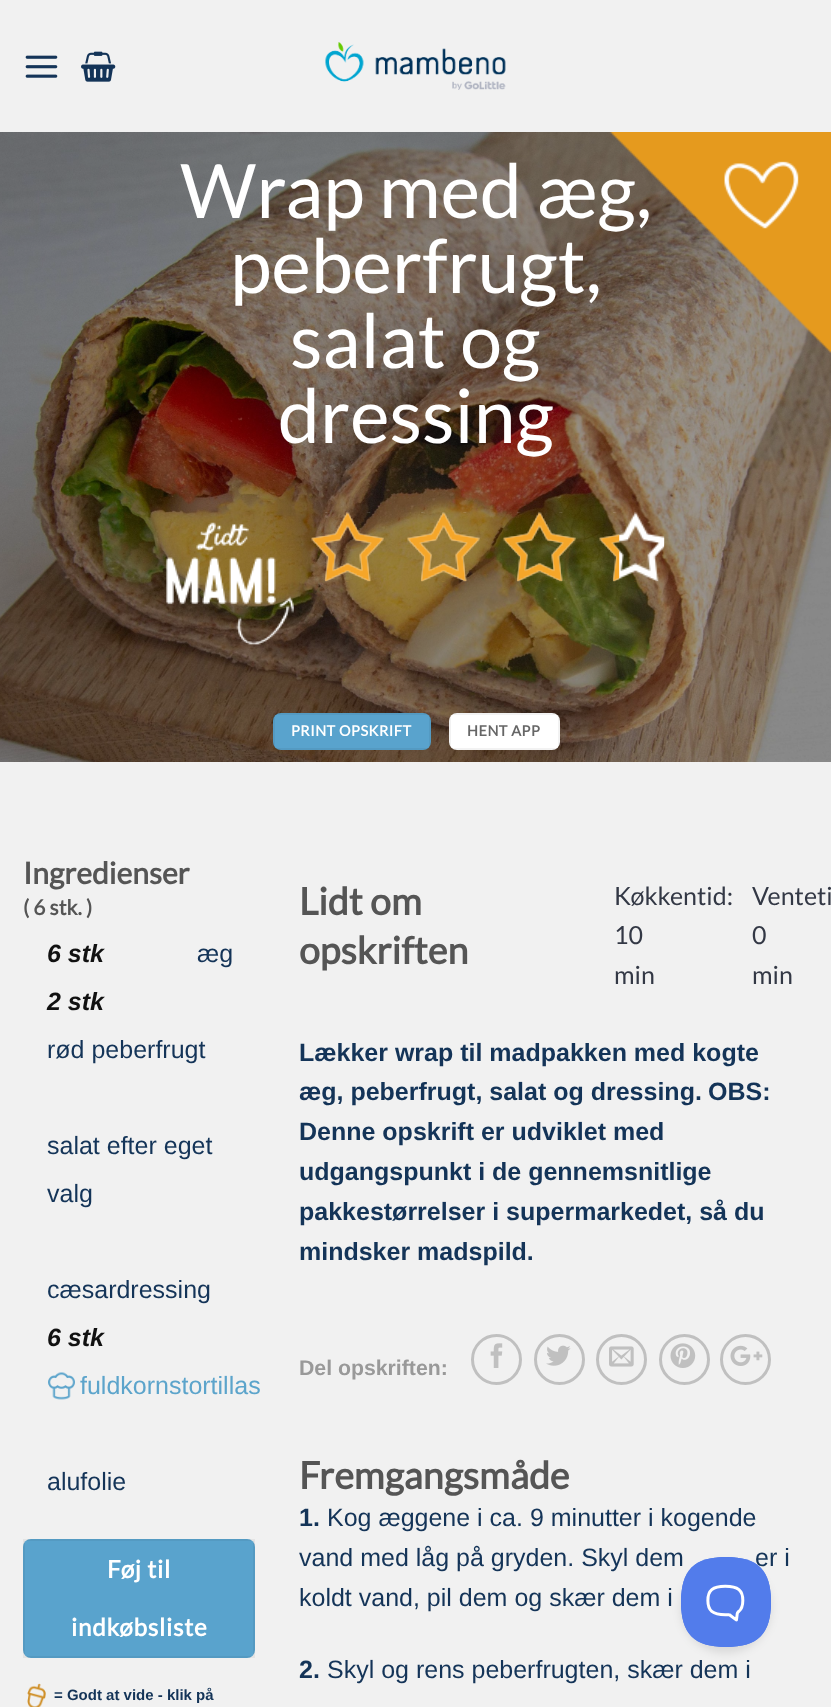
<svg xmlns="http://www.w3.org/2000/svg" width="831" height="1707">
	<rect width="100%" height="100%" fill="#F1F1F1" />
	<image x="25" y="55" width="33" height="23" href="assets/img1.png" />
	<image x="81" y="51" width="35" height="31" href="assets/img2.png" />
	<image x="325" y="42" width="181" height="48" href="assets/img3.png" />
	<image x="0" y="132" width="831" height="630" href="assets/img4.png" />
	<g font-family="Lato" font-size="75" fill="#FFFFFF">
		<text x="180" y="218">Wrap med æg,</text>
		<text x="230" y="293">peberfrugt,</text>
		<text x="290" y="368">salat og</text>
		<text x="278" y="443">dressing</text>
	</g>
	<image x="166" y="522" width="128" height="123" href="assets/img5.png" />
	<image x="311" y="512" width="354" height="70" href="assets/img6.png" />
	<image x="311" y="512" width="309" height="70" href="assets/img7.png" />
	<rect x="273" y="713" width="158" height="37" rx="8" fill="#59A3CD" />
	<rect x="274" y="714" width="156" height="35" fill="none" stroke="#000000" stroke-opacity="0.05" stroke-width="2" />
	<text x="291" y="736" font-family="Lato" font-size="14.5" font-weight="700" letter-spacing="0.5" fill="#FFFFFF">PRINT OPSKRIFT</text>
	<rect x="449" y="713" width="111" height="37" rx="8" fill="#FFFFFF" />
	<rect x="450" y="714" width="109" height="35" fill="none" stroke="#000000" stroke-opacity="0.05" stroke-width="2" />
	<text x="467" y="736" font-family="Lato" font-size="14.5" font-weight="700" letter-spacing="0.5" fill="#666666">HENT APP</text>
	<image x="610" y="132" width="221" height="221" href="assets/img8.png" />
	<text x="23" y="884" font-family="Lato" font-size="30" font-weight="700" fill="#555555">Ingredienser</text>
	<text x="23" y="915" font-family="Lato" font-size="21" font-weight="700" fill="#555555">( 6 stk. )</text>
	<text x="47" y="962" font-family="Liberation Sans" font-size="25" font-weight="700" font-style="italic" fill="#111111">6 stk</text>
	<text x="197" y="962" font-family="Liberation Sans" font-size="25" fill="#143458">æg</text>
	<text x="47" y="1010" font-family="Liberation Sans" font-size="25" font-weight="700" font-style="italic" fill="#111111">2 stk</text>
	<g font-family="Liberation Sans" font-size="25" fill="#143458">
		<text x="47" y="1058">rød peberfrugt</text>
		<text x="47" y="1154">salat efter eget</text>
		<text x="47" y="1202">valg</text>
		<text x="47" y="1298">cæsardressing</text>
	</g>
	<text x="47" y="1346" font-family="Liberation Sans" font-size="25" font-weight="700" font-style="italic" fill="#111111">6 stk</text>
	<image x="48" y="1372" width="27" height="28" href="assets/img9.png" />
	<text x="80" y="1394" font-family="Liberation Sans" font-size="25" fill="#5CA4CB">fuldkornstortillas</text>
	<text x="47" y="1490" font-family="Liberation Sans" font-size="25" fill="#143458">alufolie</text>
	<rect x="23" y="1539" width="232" height="119" rx="8" fill="#59A3CD" />
	<rect x="24" y="1540" width="230" height="117" fill="none" stroke="#000000" stroke-opacity="0.05" stroke-width="2" />
	<g font-family="Lato" font-size="24.25" font-weight="700" letter-spacing="0.75" fill="#FFFFFF">
		<text x="107" y="1578">Føj til</text>
		<text x="71" y="1636">indkøbsliste</text>
	</g>
	<image x="27" y="1683" width="19" height="24" href="assets/img10.png" />
	<text x="54" y="1700" font-family="Liberation Sans" font-size="15" font-weight="700" fill="#143458">= Godt at vide - klik på</text>
	<g font-family="Lato" font-size="37.5" font-weight="700" fill="#555555">
		<text x="299" y="915">Lidt om</text>
		<text x="299" y="964">opskriften</text>
	</g>
	<g font-family="Lato" font-size="25" fill="#333845">
		<text x="614" y="905">Køkkentid:</text>
		<text x="614" y="944">10</text>
		<text x="614" y="984">min</text>
		<text x="752" y="905">Venteti</text>
		<text x="752" y="944">0</text>
		<text x="752" y="984">min</text>
	</g>
	<g font-family="Liberation Sans" font-size="25" font-weight="700" fill="#143458">
		<text x="299" y="1061">Lækker wrap til madpakken med kogte</text>
		<text x="299" y="1100">æg, peberfrugt, salat og dressing.</text>
		<text x="708" y="1100">OBS:</text>
		<text x="299" y="1140">Denne opskrift er udviklet med</text>
		<text x="299" y="1180">udgangspunkt i de gennemsnitlige</text>
		<text x="299" y="1220">pakkestørrelser i supermarkedet, så du</text>
		<text x="299" y="1260">mindsker madspild.</text>
	</g>
	<text x="299" y="1375" font-family="Liberation Sans" font-size="21.25" font-weight="700" fill="#999999">Del opskriften:</text>
	<circle cx="496.5" cy="1359.5" r="24" fill="none" stroke="#C0C0C0" stroke-width="3" />
	<image x="490" y="1343" width="13" height="25" href="assets/img11.png" />
	<circle cx="559.5" cy="1359.5" r="24" fill="none" stroke="#C0C0C0" stroke-width="3" />
	<image x="546" y="1345" width="25" height="21" href="assets/img12.png" />
	<circle cx="621.5" cy="1359.5" r="24" fill="none" stroke="#C0C0C0" stroke-width="3" />
	<image x="609" y="1346" width="25" height="21" href="assets/img13.png" />
	<circle cx="684.5" cy="1359.5" r="24" fill="none" stroke="#C0C0C0" stroke-width="3" />
	<image x="670" y="1343" width="26" height="25" href="assets/img14.png" />
	<circle cx="745.5" cy="1359.5" r="24" fill="none" stroke="#C0C0C0" stroke-width="3" />
	<image x="730" y="1345" width="33" height="21" href="assets/img15.png" />
	<text x="299" y="1489" font-family="Lato" font-size="37.5" font-weight="700" fill="#555555">Fremgangsmåde</text>
	<text x="299" y="1526" font-family="Liberation Sans" font-size="25" font-weight="700" fill="#143458">1.</text>
	<g font-family="Liberation Sans" font-size="25" fill="#143458">
		<text x="327" y="1526">Kog æggene i ca. 9 minutter i kogende</text>
		<text x="299" y="1566">vand med låg på gryden. Skyl dem</text>
		<text x="755" y="1566">er i</text>
		<text x="299" y="1606">koldt vand, pil dem og skær dem i</text>
	</g>
	<text x="299" y="1678" font-family="Liberation Sans" font-size="25" font-weight="700" fill="#143458">2.</text>
	<text x="327" y="1678" font-family="Liberation Sans" font-size="25" fill="#143458">Skyl og rens peberfrugten, skær dem i</text>
	<rect x="681" y="1563" width="90" height="90" rx="45" fill="#000000" fill-opacity="0.1" filter="blur(5px)" />
	<image x="681" y="1557" width="90" height="90" href="assets/img16.png" />
</svg>
